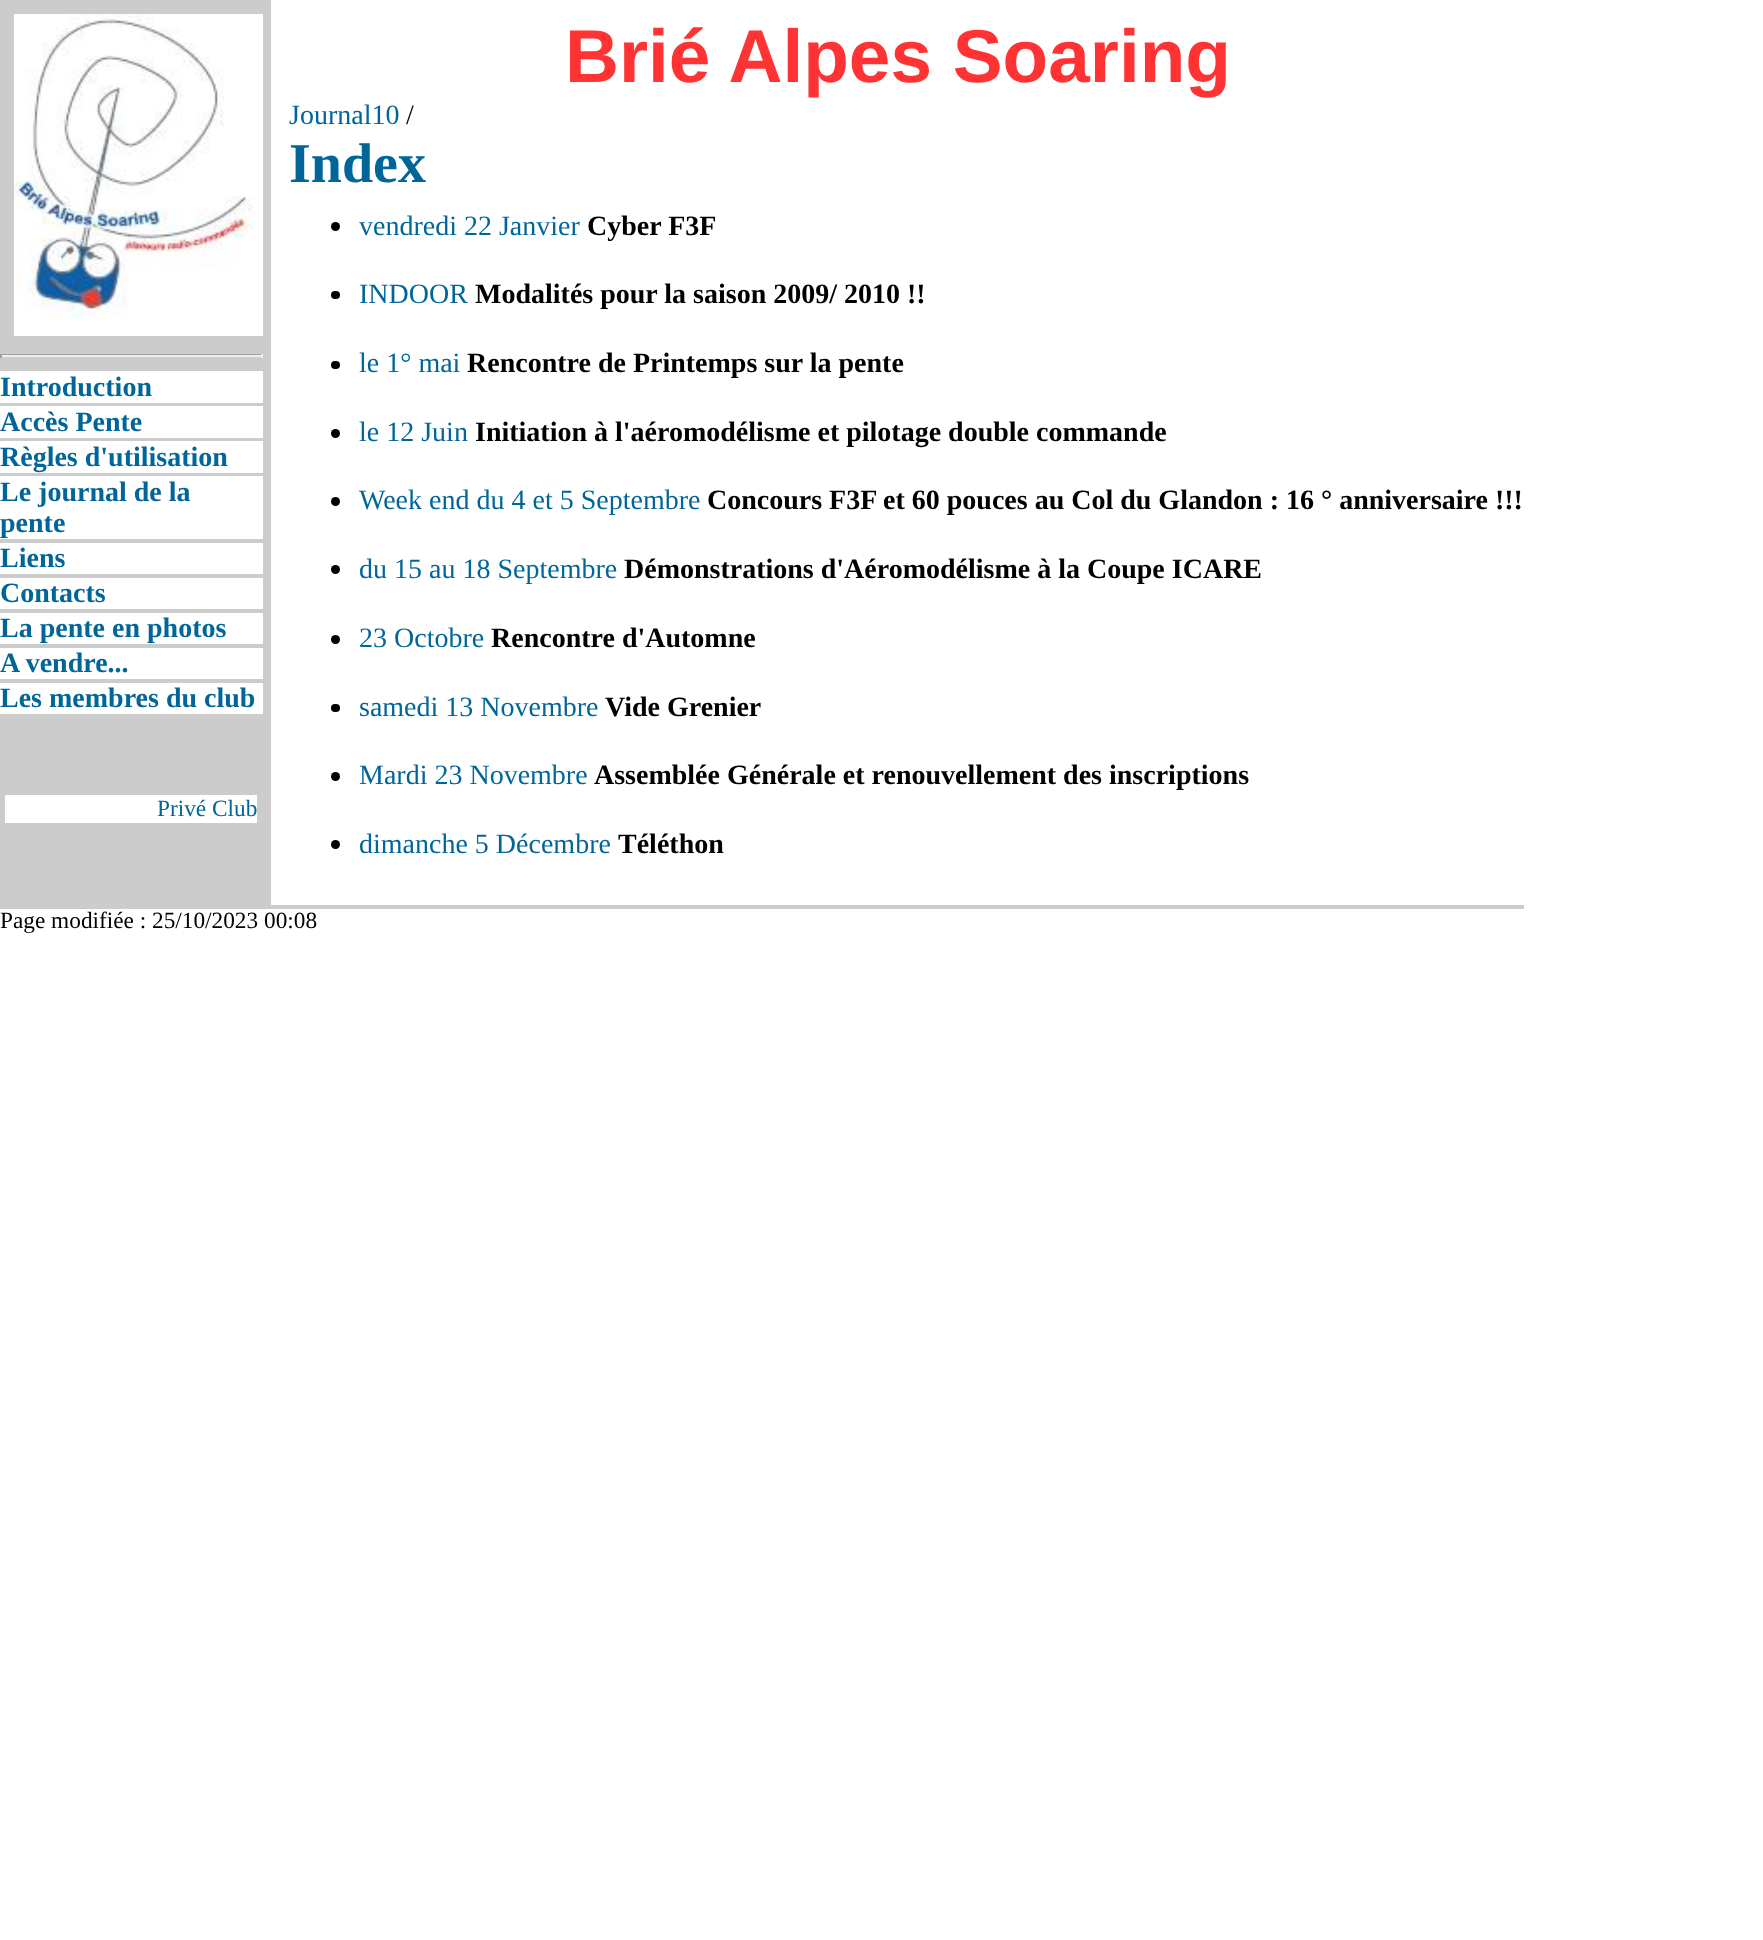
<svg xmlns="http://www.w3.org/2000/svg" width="1763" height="1940">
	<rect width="100%" height="100%" fill="#FFFFFF" />
	<rect x="0" y="0" width="271" height="905" fill="#CCCCCC" />
	<rect x="14" y="14" width="249" height="322" fill="#FFFFFF" />
	<image x="14" y="14" width="241" height="305" href="assets/img1.png" />
	<rect x="0" y="354" width="263" height="1" fill="#9F9F9F" />
	<rect x="261" y="354" width="2" height="4" fill="#EEEEEE" />
	<rect x="0" y="355" width="263" height="2" fill="#EEEEEE" />
	<rect x="0" y="354" width="2" height="4" fill="#9F9F9F" />
	<rect x="0" y="371" width="263" height="32" fill="#FFFFFF" />
	<text x="0" y="396" font-family="Liberation Serif" font-size="28" font-weight="700" fill="#006699">Introduction</text>
	<rect x="0" y="406" width="263" height="32" fill="#FFFFFF" />
	<text x="0" y="431" font-family="Liberation Serif" font-size="28" font-weight="700" fill="#006699">Accès Pente</text>
	<rect x="0" y="441" width="263" height="32" fill="#FFFFFF" />
	<text x="0" y="466" font-family="Liberation Serif" font-size="28" font-weight="700" fill="#006699">Règles d'utilisation</text>
	<rect x="0" y="476" width="263" height="63" fill="#FFFFFF" />
	<g font-family="Liberation Serif" font-size="28" font-weight="700" fill="#006699">
		<text x="0" y="501">Le journal de la</text>
		<text x="0" y="532">pente</text>
	</g>
	<rect x="0" y="543" width="263" height="31" fill="#FFFFFF" />
	<text x="0" y="567" font-family="Liberation Serif" font-size="28" font-weight="700" fill="#006699">Liens</text>
	<rect x="0" y="578" width="263" height="31" fill="#FFFFFF" />
	<text x="0" y="602" font-family="Liberation Serif" font-size="28" font-weight="700" fill="#006699">Contacts</text>
	<rect x="0" y="613" width="263" height="31" fill="#FFFFFF" />
	<text x="0" y="637" font-family="Liberation Serif" font-size="28" font-weight="700" fill="#006699">La pente en photos</text>
	<rect x="0" y="648" width="263" height="31" fill="#FFFFFF" />
	<text x="0" y="672" font-family="Liberation Serif" font-size="28" font-weight="700" fill="#006699">A vendre...</text>
	<rect x="0" y="683" width="263" height="31" fill="#FFFFFF" />
	<text x="0" y="707" font-family="Liberation Serif" font-size="28" font-weight="700" fill="#006699">Les membres du club</text>
	<rect x="5" y="795" width="252" height="28" fill="#FFFFFF" />
	<text x="157" y="816" font-family="Liberation Serif" font-size="23.3" fill="#006699">Privé Club</text>
	<text x="565" y="82" font-family="Liberation Sans" font-size="74.75" font-weight="700" fill="#FF3333">Brié Alpes Soaring</text>
	<text x="289" y="124" font-family="Liberation Serif" font-size="28" fill="#006699">Journal10</text>
	<text x="406" y="124" font-family="Liberation Serif" font-size="28" fill="#000000">/</text>
	<text x="289" y="182" font-family="Liberation Serif" font-size="56" font-weight="700" fill="#006699">Index</text>
	<circle cx="335.5" cy="226.5" r="4.5" fill="#000000" />
	<text x="359" y="235" font-family="Liberation Serif" font-size="28" fill="#006699">vendredi 22 Janvier</text>
	<text x="587" y="235" font-family="Liberation Serif" font-size="28" font-weight="700" fill="#000000">Cyber F3F</text>
	<rect x="331" y="291" width="9" height="8" rx="4" fill="#000000" />
	<text x="359" y="303" font-family="Liberation Serif" font-size="28" fill="#006699">INDOOR</text>
	<text x="475" y="303" font-family="Liberation Serif" font-size="28" font-weight="700" fill="#000000">Modalités pour la saison 2009/ 2010 !!</text>
	<rect x="331" y="361" width="9" height="8" rx="4" fill="#000000" />
	<text x="359" y="372" font-family="Liberation Serif" font-size="28" fill="#006699">le 1° mai</text>
	<text x="467" y="372" font-family="Liberation Serif" font-size="28" font-weight="700" fill="#000000">Rencontre de Printemps sur la pente</text>
	<circle cx="335.5" cy="433.5" r="4.5" fill="#000000" />
	<text x="359" y="441" font-family="Liberation Serif" font-size="28" fill="#006699">le 12 Juin</text>
	<text x="475" y="441" font-family="Liberation Serif" font-size="28" font-weight="700" fill="#000000">Initiation à l'aéromodélisme et pilotage double commande</text>
	<circle cx="335.5" cy="501.5" r="4.5" fill="#000000" />
	<text x="359" y="509" font-family="Liberation Serif" font-size="28" fill="#006699">Week end du 4 et 5 Septembre</text>
	<g font-family="Liberation Serif" font-size="28" font-weight="700" fill="#000000">
		<text x="707" y="509">Concours F3F</text>
		<text x="883" y="509">et 60 pouces au Col du Glandon : 16 ° anniversaire !!!</text>
	</g>
	<circle cx="335.5" cy="569.5" r="4.5" fill="#000000" />
	<text x="359" y="578" font-family="Liberation Serif" font-size="28" fill="#006699">du 15 au 18 Septembre</text>
	<text x="624" y="578" font-family="Liberation Serif" font-size="28" font-weight="700" fill="#000000">Démonstrations d'Aéromodélisme à la Coupe ICARE</text>
	<circle cx="335.5" cy="639.5" r="4.5" fill="#000000" />
	<text x="359" y="647" font-family="Liberation Serif" font-size="28" fill="#006699">23 Octobre</text>
	<text x="491" y="647" font-family="Liberation Serif" font-size="28" font-weight="700" fill="#000000">Rencontre d'Automne</text>
	<rect x="331" y="704" width="9" height="8" rx="4" fill="#000000" />
	<text x="359" y="716" font-family="Liberation Serif" font-size="28" fill="#006699">samedi 13 Novembre</text>
	<text x="605" y="716" font-family="Liberation Serif" font-size="28" font-weight="700" fill="#000000">Vide Grenier</text>
	<circle cx="335.5" cy="776.5" r="4.5" fill="#000000" />
	<text x="359" y="784" font-family="Liberation Serif" font-size="28" fill="#006699">Mardi 23 Novembre</text>
	<text x="594" y="784" font-family="Liberation Serif" font-size="28" font-weight="700" fill="#000000">Assemblée Générale et renouvellement des inscriptions</text>
	<circle cx="335.5" cy="844.5" r="4.5" fill="#000000" />
	<text x="359" y="853" font-family="Liberation Serif" font-size="28" fill="#006699">dimanche 5 Décembre</text>
	<text x="618" y="853" font-family="Liberation Serif" font-size="28" font-weight="700" fill="#000000">Téléthon</text>
	<rect x="0" y="905" width="1524" height="4" fill="#CCCCCC" />
	<text x="0" y="928" font-family="Liberation Serif" font-size="23.3" fill="#000000">Page modifiée : 25/10/2023 00:08</text>
</svg>
